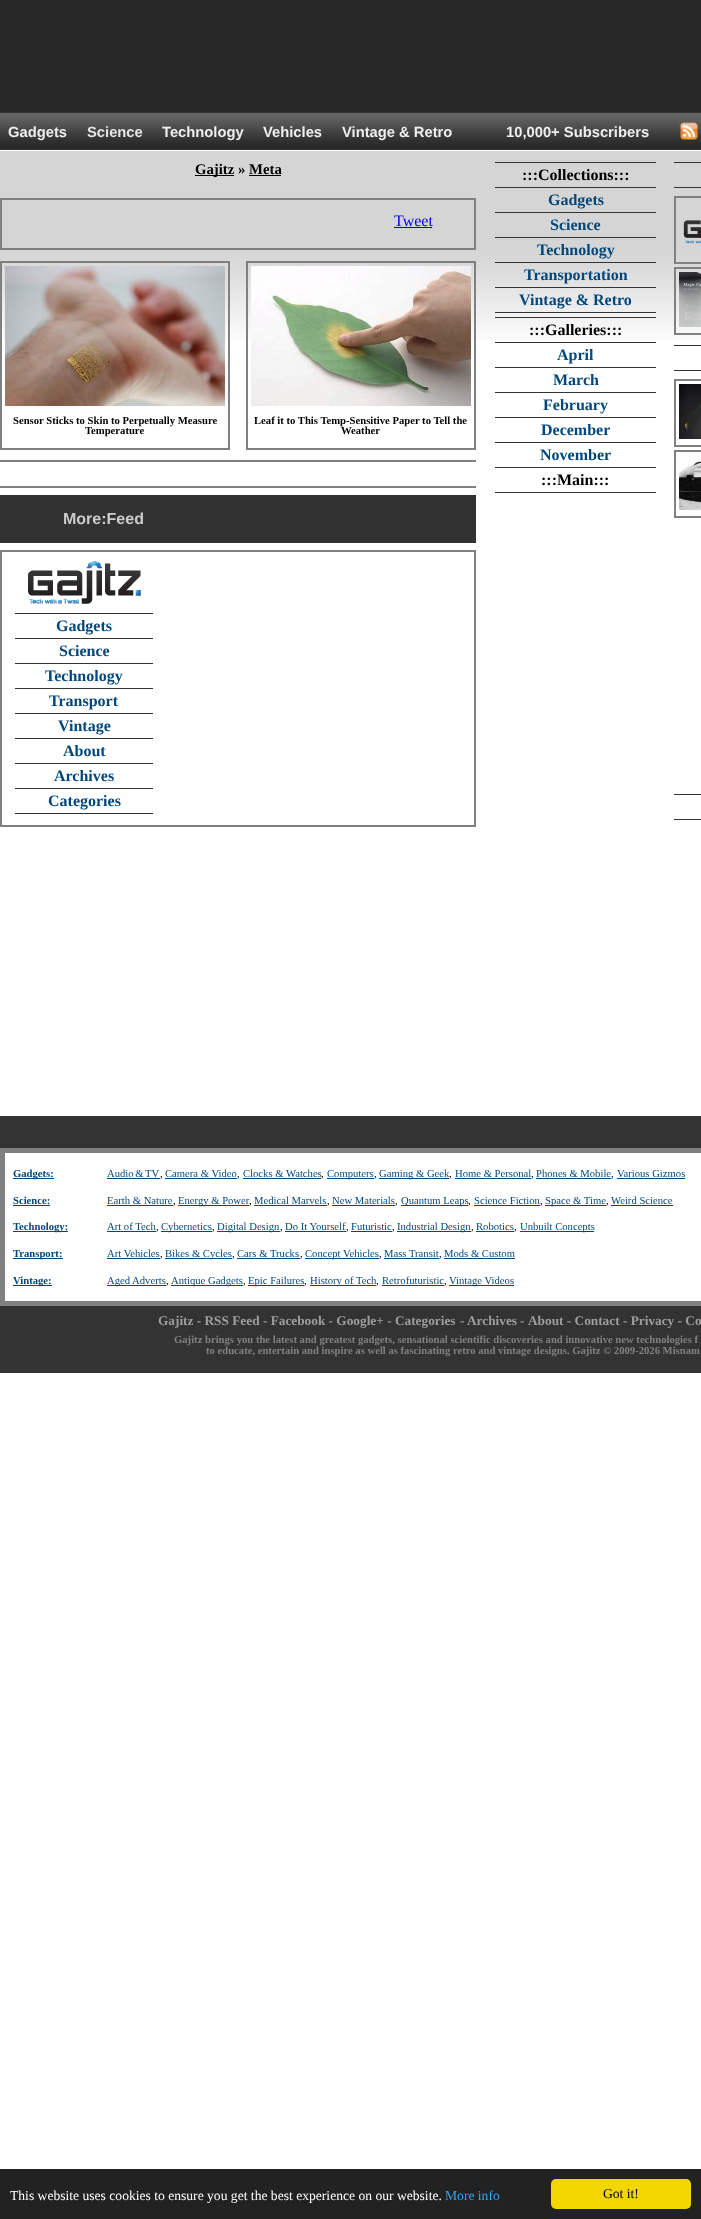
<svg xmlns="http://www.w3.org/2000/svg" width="701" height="2219">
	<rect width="100%" height="100%" fill="#FFFFFF" />
	<image x="0" y="0" width="701" height="340" href="assets/img1.png" />
	<text x="8" y="137" font-family="Liberation Sans" font-size="14.75" font-weight="700" fill="#EEEEEE">Gadgets</text>
	<text x="87" y="137" font-family="Liberation Sans" font-size="14.75" font-weight="700" fill="#E5E5E5">Science</text>
	<g font-family="Liberation Sans" font-size="14.75" font-weight="700" fill="#EEEEEE">
		<text x="162" y="137">Technology</text>
		<text x="263" y="137">Vehicles</text>
		<text x="342" y="137">Vintage &amp; Retro</text>
		<text x="506" y="137">10,000+ Subscribers</text>
	</g>
	<image x="678" y="120" width="22" height="22" href="assets/img2.png" />
	<rect x="195" y="175" width="39" height="1" fill="#000000" />
	<text x="195" y="174" font-family="Liberation Serif" font-size="14.75" font-weight="700" fill="#000000">Gajitz » Meta</text>
	<rect x="249" y="175" width="32" height="1" fill="#000000" />
	<rect x="1" y="199" width="474" height="50" fill="none" stroke="#808080" stroke-width="2" />
	<text x="394" y="226" font-family="Liberation Serif" font-size="16" fill="#0000EE">Tweet</text>
	<rect x="394" y="227" width="38" height="1" fill="#0000EE" />
	<rect x="1" y="262" width="228" height="187" fill="none" stroke="#808080" stroke-width="2" />
	<image x="5" y="266" width="220" height="140" href="assets/img3.png" />
	<g font-family="Liberation Serif" font-size="10.65" font-weight="700" fill="#000000">
		<text x="13" y="424">Sensor Sticks to Skin to Perpetually Measure</text>
		<text x="85" y="434">Temperature</text>
	</g>
	<rect x="247" y="262" width="228" height="187" fill="none" stroke="#808080" stroke-width="2" />
	<image x="251" y="266" width="220" height="140" href="assets/img4.png" />
	<g font-family="Liberation Serif" font-size="10.65" font-weight="700" fill="#000000">
		<text x="254" y="424">Leaf it to This Temp-Sensitive Paper to Tell the</text>
		<text x="341" y="434">Weather</text>
	</g>
	<rect x="0" y="460" width="476" height="2" fill="#808080" />
	<rect x="0" y="486" width="476" height="2" fill="#808080" />
	<rect x="0" y="495" width="476" height="48" fill="#323232" />
	<text x="63" y="524" font-family="Liberation Sans" font-size="16" font-weight="700" fill="#CCCCCC">More:Feed</text>
	<rect x="1" y="551" width="474" height="275" fill="none" stroke="#808080" stroke-width="2" />
	<image x="28" y="561" width="113" height="43" href="assets/img5.png" />
	<rect x="15" y="613" width="138" height="1" fill="#333333" />
	<rect x="15" y="638" width="138" height="1" fill="#333333" />
	<text x="56" y="631" font-family="Liberation Serif" font-size="16" font-weight="700" fill="#00477B">Gadgets</text>
	<rect x="15" y="663" width="138" height="1" fill="#333333" />
	<text x="59" y="656" font-family="Liberation Serif" font-size="16" font-weight="700" fill="#00477B">Science</text>
	<rect x="15" y="688" width="138" height="1" fill="#333333" />
	<text x="45" y="681" font-family="Liberation Serif" font-size="16" font-weight="700" fill="#00477B">Technology</text>
	<rect x="15" y="713" width="138" height="1" fill="#333333" />
	<text x="49" y="706" font-family="Liberation Serif" font-size="16" font-weight="700" fill="#00477B">Transport</text>
	<rect x="15" y="738" width="138" height="1" fill="#333333" />
	<text x="58" y="731" font-family="Liberation Serif" font-size="16" font-weight="700" fill="#00477B">Vintage</text>
	<rect x="15" y="763" width="138" height="1" fill="#333333" />
	<text x="63" y="756" font-family="Liberation Serif" font-size="16" font-weight="700" fill="#00477B">About</text>
	<rect x="15" y="788" width="138" height="1" fill="#333333" />
	<text x="54" y="781" font-family="Liberation Serif" font-size="16" font-weight="700" fill="#00477B">Archives</text>
	<rect x="15" y="813" width="138" height="1" fill="#333333" />
	<text x="48" y="806" font-family="Liberation Serif" font-size="16" font-weight="700" fill="#00477B">Categories</text>
	<rect x="495" y="162" width="161" height="1" fill="#333333" />
	<rect x="495" y="187" width="161" height="1" fill="#333333" />
	<text x="522" y="180" font-family="Liberation Serif" font-size="16" font-weight="700" fill="#000000">:::Collections:::</text>
	<rect x="495" y="212" width="161" height="1" fill="#333333" />
	<text x="548" y="205" font-family="Liberation Serif" font-size="16" font-weight="700" fill="#00477B">Gadgets</text>
	<rect x="495" y="237" width="161" height="1" fill="#333333" />
	<text x="550" y="230" font-family="Liberation Serif" font-size="16" font-weight="700" fill="#00477B">Science</text>
	<rect x="495" y="262" width="161" height="1" fill="#333333" />
	<text x="537" y="255" font-family="Liberation Serif" font-size="16" font-weight="700" fill="#00477B">Technology</text>
	<rect x="495" y="287" width="161" height="1" fill="#333333" />
	<text x="524" y="280" font-family="Liberation Serif" font-size="16" font-weight="700" fill="#00477B">Transportation</text>
	<rect x="495" y="312" width="161" height="1" fill="#333333" />
	<text x="519" y="305" font-family="Liberation Serif" font-size="16" font-weight="700" fill="#00477B">Vintage &amp; Retro</text>
	<rect x="495" y="317" width="161" height="1" fill="#333333" />
	<rect x="495" y="342" width="161" height="1" fill="#333333" />
	<text x="529" y="335" font-family="Liberation Serif" font-size="16" font-weight="700" fill="#000000">:::Galleries:::</text>
	<rect x="495" y="367" width="161" height="1" fill="#333333" />
	<text x="557" y="360" font-family="Liberation Serif" font-size="16" font-weight="700" fill="#00477B">April</text>
	<rect x="495" y="392" width="161" height="1" fill="#333333" />
	<text x="553" y="385" font-family="Liberation Serif" font-size="16" font-weight="700" fill="#00477B">March</text>
	<rect x="495" y="417" width="161" height="1" fill="#333333" />
	<text x="543" y="410" font-family="Liberation Serif" font-size="16" font-weight="700" fill="#00477B">February</text>
	<rect x="495" y="442" width="161" height="1" fill="#333333" />
	<text x="541" y="435" font-family="Liberation Serif" font-size="16" font-weight="700" fill="#00477B">December</text>
	<rect x="495" y="467" width="161" height="1" fill="#333333" />
	<text x="540" y="460" font-family="Liberation Serif" font-size="16" font-weight="700" fill="#00477B">November</text>
	<rect x="495" y="492" width="161" height="1" fill="#333333" />
	<text x="541" y="485" font-family="Liberation Serif" font-size="16" font-weight="700" fill="#000000">:::Main:::</text>
	<rect x="674" y="162" width="27" height="1" fill="#333333" />
	<rect x="674" y="187" width="27" height="1" fill="#333333" />
	<rect x="675" y="197" width="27" height="66" fill="none" stroke="#808080" stroke-width="2" />
	<image x="683" y="220" width="18" height="24" href="assets/img6.png" />
	<rect x="675" y="268" width="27" height="66" fill="none" stroke="#808080" stroke-width="2" />
	<image x="679" y="272" width="22" height="55" href="assets/img7.png" />
	<rect x="674" y="345" width="27" height="1" fill="#333333" />
	<rect x="674" y="370" width="27" height="1" fill="#333333" />
	<rect x="675" y="380" width="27" height="66" fill="none" stroke="#808080" stroke-width="2" />
	<image x="679" y="384" width="22" height="55" href="assets/img8.png" />
	<rect x="675" y="451" width="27" height="66" fill="none" stroke="#808080" stroke-width="2" />
	<image x="679" y="456" width="22" height="54" href="assets/img9.png" />
	<rect x="674" y="794" width="27" height="1" fill="#333333" />
	<rect x="674" y="819" width="27" height="1" fill="#333333" />
	<rect x="0" y="1116" width="701" height="257" fill="#333333" />
	<rect x="2.5" y="1150.5" width="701" height="153" fill="#FFFFFF" stroke="#808080" stroke-width="5" />
	<rect x="13" y="1178" width="41" height="1" fill="#00477B" />
	<g font-family="Liberation Serif" font-size="10.65" font-weight="700" fill="#00477B">
		<text x="13" y="1177">Gadgets:</text>
		<text x="13" y="1204">Science:</text>
	</g>
	<rect x="13" y="1205" width="37" height="1" fill="#00477B" />
	<rect x="13" y="1231" width="55" height="1" fill="#00477B" />
	<text x="13" y="1230" font-family="Liberation Serif" font-size="10.65" font-weight="700" fill="#00477B">Technology:</text>
	<rect x="13" y="1258" width="50" height="1" fill="#00477B" />
	<text x="13" y="1257" font-family="Liberation Serif" font-size="10.65" font-weight="700" fill="#00477B">Transport:</text>
	<rect x="13" y="1285" width="39" height="1" fill="#00477B" />
	<text x="13" y="1284" font-family="Liberation Serif" font-size="10.65" font-weight="700" fill="#00477B">Vintage:</text>
	<text x="107" y="1177" word-spacing="-1" font-family="Liberation Serif" font-size="10.65" fill="#00477B">Audio &amp; TV</text>
	<rect x="107" y="1178" width="53" height="1" fill="#00477B" />
	<text x="160" y="1177" font-family="Liberation Serif" font-size="10.65" fill="#000000">,</text>
	<text x="165" y="1177" font-family="Liberation Serif" font-size="10.65" fill="#00477B">Camera &amp; Video</text>
	<rect x="165" y="1178" width="72" height="1" fill="#00477B" />
	<text x="237" y="1177" font-family="Liberation Serif" font-size="10.65" fill="#000000">,</text>
	<text x="243" y="1177" font-family="Liberation Serif" font-size="10.65" fill="#00477B">Clocks &amp; Watches</text>
	<rect x="243" y="1178" width="78" height="1" fill="#00477B" />
	<text x="321" y="1177" font-family="Liberation Serif" font-size="10.65" fill="#000000">,</text>
	<rect x="327" y="1178" width="47" height="1" fill="#00477B" />
	<text x="327" y="1177" font-family="Liberation Serif" font-size="10.65" fill="#00477B">Computers</text>
	<text x="374" y="1177" font-family="Liberation Serif" font-size="10.65" fill="#000000">,</text>
	<rect x="379" y="1178" width="70" height="1" fill="#00477B" />
	<text x="379" y="1177" font-family="Liberation Serif" font-size="10.65" fill="#00477B">Gaming &amp; Geek</text>
	<text x="449" y="1177" font-family="Liberation Serif" font-size="10.65" fill="#000000">,</text>
	<text x="455" y="1177" font-family="Liberation Serif" font-size="10.65" fill="#00477B">Home &amp; Personal</text>
	<rect x="455" y="1178" width="76" height="1" fill="#00477B" />
	<text x="531" y="1177" font-family="Liberation Serif" font-size="10.65" fill="#000000">,</text>
	<text x="536" y="1177" font-family="Liberation Serif" font-size="10.65" fill="#00477B">Phones &amp; Mobile</text>
	<rect x="536" y="1178" width="75" height="1" fill="#00477B" />
	<text x="611" y="1177" font-family="Liberation Serif" font-size="10.65" fill="#000000">,</text>
	<text x="617" y="1177" font-family="Liberation Serif" font-size="10.65" fill="#00477B">Various Gizmos</text>
	<rect x="617" y="1178" width="68" height="1" fill="#00477B" />
	<text x="107" y="1204" font-family="Liberation Serif" font-size="10.65" fill="#00477B">Earth &amp; Nature</text>
	<rect x="107" y="1205" width="66" height="1" fill="#00477B" />
	<text x="173" y="1204" font-family="Liberation Serif" font-size="10.65" fill="#000000">,</text>
	<rect x="178" y="1205" width="71" height="1" fill="#00477B" />
	<text x="178" y="1204" font-family="Liberation Serif" font-size="10.65" fill="#00477B">Energy &amp; Power</text>
	<text x="249" y="1204" font-family="Liberation Serif" font-size="10.65" fill="#000000">,</text>
	<text x="254" y="1204" font-family="Liberation Serif" font-size="10.65" fill="#00477B">Medical Marvels</text>
	<rect x="254" y="1205" width="73" height="1" fill="#00477B" />
	<text x="327" y="1204" font-family="Liberation Serif" font-size="10.65" fill="#000000">,</text>
	<text x="332" y="1204" font-family="Liberation Serif" font-size="10.65" fill="#00477B">New Materials</text>
	<rect x="332" y="1205" width="63" height="1" fill="#00477B" />
	<text x="395" y="1204" font-family="Liberation Serif" font-size="10.65" fill="#000000">,</text>
	<rect x="401" y="1205" width="67" height="1" fill="#00477B" />
	<text x="401" y="1204" font-family="Liberation Serif" font-size="10.65" fill="#00477B">Quantum Leaps</text>
	<text x="468" y="1204" font-family="Liberation Serif" font-size="10.65" fill="#000000">,</text>
	<text x="474" y="1204" font-family="Liberation Serif" font-size="10.65" fill="#00477B">Science Fiction</text>
	<rect x="474" y="1205" width="66" height="1" fill="#00477B" />
	<text x="540" y="1204" font-family="Liberation Serif" font-size="10.65" fill="#000000">,</text>
	<rect x="545" y="1205" width="61" height="1" fill="#00477B" />
	<text x="545" y="1204" font-family="Liberation Serif" font-size="10.65" fill="#00477B">Space &amp; Time</text>
	<text x="606" y="1204" font-family="Liberation Serif" font-size="10.65" fill="#000000">,</text>
	<text x="611" y="1204" font-family="Liberation Serif" font-size="10.65" fill="#00477B">Weird Science</text>
	<rect x="611" y="1205" width="62" height="1" fill="#00477B" />
	<text x="107" y="1230" font-family="Liberation Serif" font-size="10.65" fill="#00477B">Art of Tech</text>
	<rect x="107" y="1231" width="49" height="1" fill="#00477B" />
	<text x="156" y="1230" font-family="Liberation Serif" font-size="10.65" fill="#000000">,</text>
	<rect x="161" y="1231" width="51" height="1" fill="#00477B" />
	<text x="161" y="1230" font-family="Liberation Serif" font-size="10.65" fill="#00477B">Cybernetics</text>
	<text x="212" y="1230" font-family="Liberation Serif" font-size="10.65" fill="#000000">,</text>
	<rect x="217" y="1231" width="63" height="1" fill="#00477B" />
	<text x="217" y="1230" font-family="Liberation Serif" font-size="10.65" fill="#00477B">Digital Design</text>
	<text x="280" y="1230" font-family="Liberation Serif" font-size="10.65" fill="#000000">,</text>
	<text x="285" y="1230" font-family="Liberation Serif" font-size="10.65" fill="#00477B">Do It Yourself</text>
	<rect x="285" y="1231" width="61" height="1" fill="#00477B" />
	<text x="346" y="1230" font-family="Liberation Serif" font-size="10.65" fill="#000000">,</text>
	<text x="351" y="1230" font-family="Liberation Serif" font-size="10.65" fill="#00477B">Futuristic</text>
	<rect x="351" y="1231" width="41" height="1" fill="#00477B" />
	<text x="392" y="1230" font-family="Liberation Serif" font-size="10.65" fill="#000000">,</text>
	<rect x="397" y="1231" width="74" height="1" fill="#00477B" />
	<text x="397" y="1230" font-family="Liberation Serif" font-size="10.65" fill="#00477B">Industrial Design</text>
	<text x="471" y="1230" font-family="Liberation Serif" font-size="10.65" fill="#000000">,</text>
	<text x="476" y="1230" font-family="Liberation Serif" font-size="10.65" fill="#00477B">Robotics</text>
	<rect x="476" y="1231" width="38" height="1" fill="#00477B" />
	<text x="514" y="1230" font-family="Liberation Serif" font-size="10.65" fill="#000000">,</text>
	<rect x="520" y="1231" width="74" height="1" fill="#00477B" />
	<g font-family="Liberation Serif" font-size="10.65" fill="#00477B">
		<text x="520" y="1230">Unbuilt Concepts</text>
		<text x="107" y="1257">Art Vehicles</text>
	</g>
	<rect x="107" y="1258" width="53" height="1" fill="#00477B" />
	<text x="160" y="1257" font-family="Liberation Serif" font-size="10.65" fill="#000000">,</text>
	<rect x="165" y="1258" width="67" height="1" fill="#00477B" />
	<text x="165" y="1257" font-family="Liberation Serif" font-size="10.65" fill="#00477B">Bikes &amp; Cycles</text>
	<text x="232" y="1257" font-family="Liberation Serif" font-size="10.65" fill="#000000">,</text>
	<text x="237" y="1257" font-family="Liberation Serif" font-size="10.65" fill="#00477B">Cars &amp; Trucks</text>
	<rect x="237" y="1258" width="63" height="1" fill="#00477B" />
	<text x="300" y="1257" font-family="Liberation Serif" font-size="10.65" fill="#000000">,</text>
	<rect x="305" y="1258" width="74" height="1" fill="#00477B" />
	<text x="305" y="1257" font-family="Liberation Serif" font-size="10.65" fill="#00477B">Concept Vehicles</text>
	<text x="379" y="1257" font-family="Liberation Serif" font-size="10.65" fill="#000000">,</text>
	<text x="384" y="1257" font-family="Liberation Serif" font-size="10.65" fill="#00477B">Mass Transit</text>
	<rect x="384" y="1258" width="55" height="1" fill="#00477B" />
	<text x="439" y="1257" font-family="Liberation Serif" font-size="10.65" fill="#000000">,</text>
	<text x="444" y="1257" font-family="Liberation Serif" font-size="10.65" fill="#00477B">Mods &amp; Custom</text>
	<rect x="444" y="1258" width="71" height="1" fill="#00477B" />
	<rect x="107" y="1285" width="59" height="1" fill="#00477B" />
	<text x="107" y="1284" font-family="Liberation Serif" font-size="10.65" fill="#00477B">Aged Adverts</text>
	<text x="166" y="1284" font-family="Liberation Serif" font-size="10.65" fill="#000000">,</text>
	<rect x="171" y="1285" width="72" height="1" fill="#00477B" />
	<text x="171" y="1284" font-family="Liberation Serif" font-size="10.65" fill="#00477B">Antique Gadgets</text>
	<text x="243" y="1284" font-family="Liberation Serif" font-size="10.65" fill="#000000">,</text>
	<rect x="248" y="1285" width="56" height="1" fill="#00477B" />
	<text x="248" y="1284" font-family="Liberation Serif" font-size="10.65" fill="#00477B">Epic Failures</text>
	<text x="304" y="1284" font-family="Liberation Serif" font-size="10.65" fill="#000000">,</text>
	<rect x="310" y="1285" width="66" height="1" fill="#00477B" />
	<text x="310" y="1284" font-family="Liberation Serif" font-size="10.65" fill="#00477B">History of Tech</text>
	<text x="376" y="1284" font-family="Liberation Serif" font-size="10.65" fill="#000000">,</text>
	<text x="382" y="1284" font-family="Liberation Serif" font-size="10.65" fill="#00477B">Retrofuturistic</text>
	<rect x="382" y="1285" width="62" height="1" fill="#00477B" />
	<text x="444" y="1284" font-family="Liberation Serif" font-size="10.65" fill="#000000">,</text>
	<rect x="449" y="1285" width="65" height="1" fill="#00477B" />
	<text x="449" y="1284" font-family="Liberation Serif" font-size="10.65" fill="#00477B">Vintage Videos</text>
	<g font-family="Liberation Serif" font-size="13.3" font-weight="700" fill="#9E9E9E">
		<text x="158" y="1325">Gajitz - RSS Feed - Facebook - Google+ - Categories</text>
		<text x="460" y="1325">-</text>
		<text x="467" y="1325">Archives</text>
		<text x="520" y="1325">-</text>
		<text x="528" y="1325">About - Contact - Privacy - Co</text>
	</g>
	<g font-family="Liberation Serif" font-size="10.65" font-weight="700" fill="#808080">
		<text x="174" y="1343">Gajitz brings you the latest and greatest gadgets, sensational scientific discoveries and innovative new technologies f</text>
		<text x="206" y="1354">to educate, entertain and inspire as well as fascinating retro and vintage designs. Gajitz © 2009-2026 Misnam</text>
	</g>
	<rect x="0" y="2169" width="701" height="50" fill="#222222" />
	<text x="10" y="2200" font-family="Liberation Serif" font-size="13.6" fill="#FFFFFF">This website uses cookies to ensure you get the best experience on our website.</text>
	<text x="445" y="2200" font-family="Liberation Serif" font-size="13.6" fill="#31A8F0">More info</text>
	<rect x="551" y="2179" width="140" height="30" rx="5" fill="#F1D600" />
	<text x="603" y="2198" font-family="Liberation Serif" font-size="13.6" fill="#000000">Got it!</text>
</svg>
